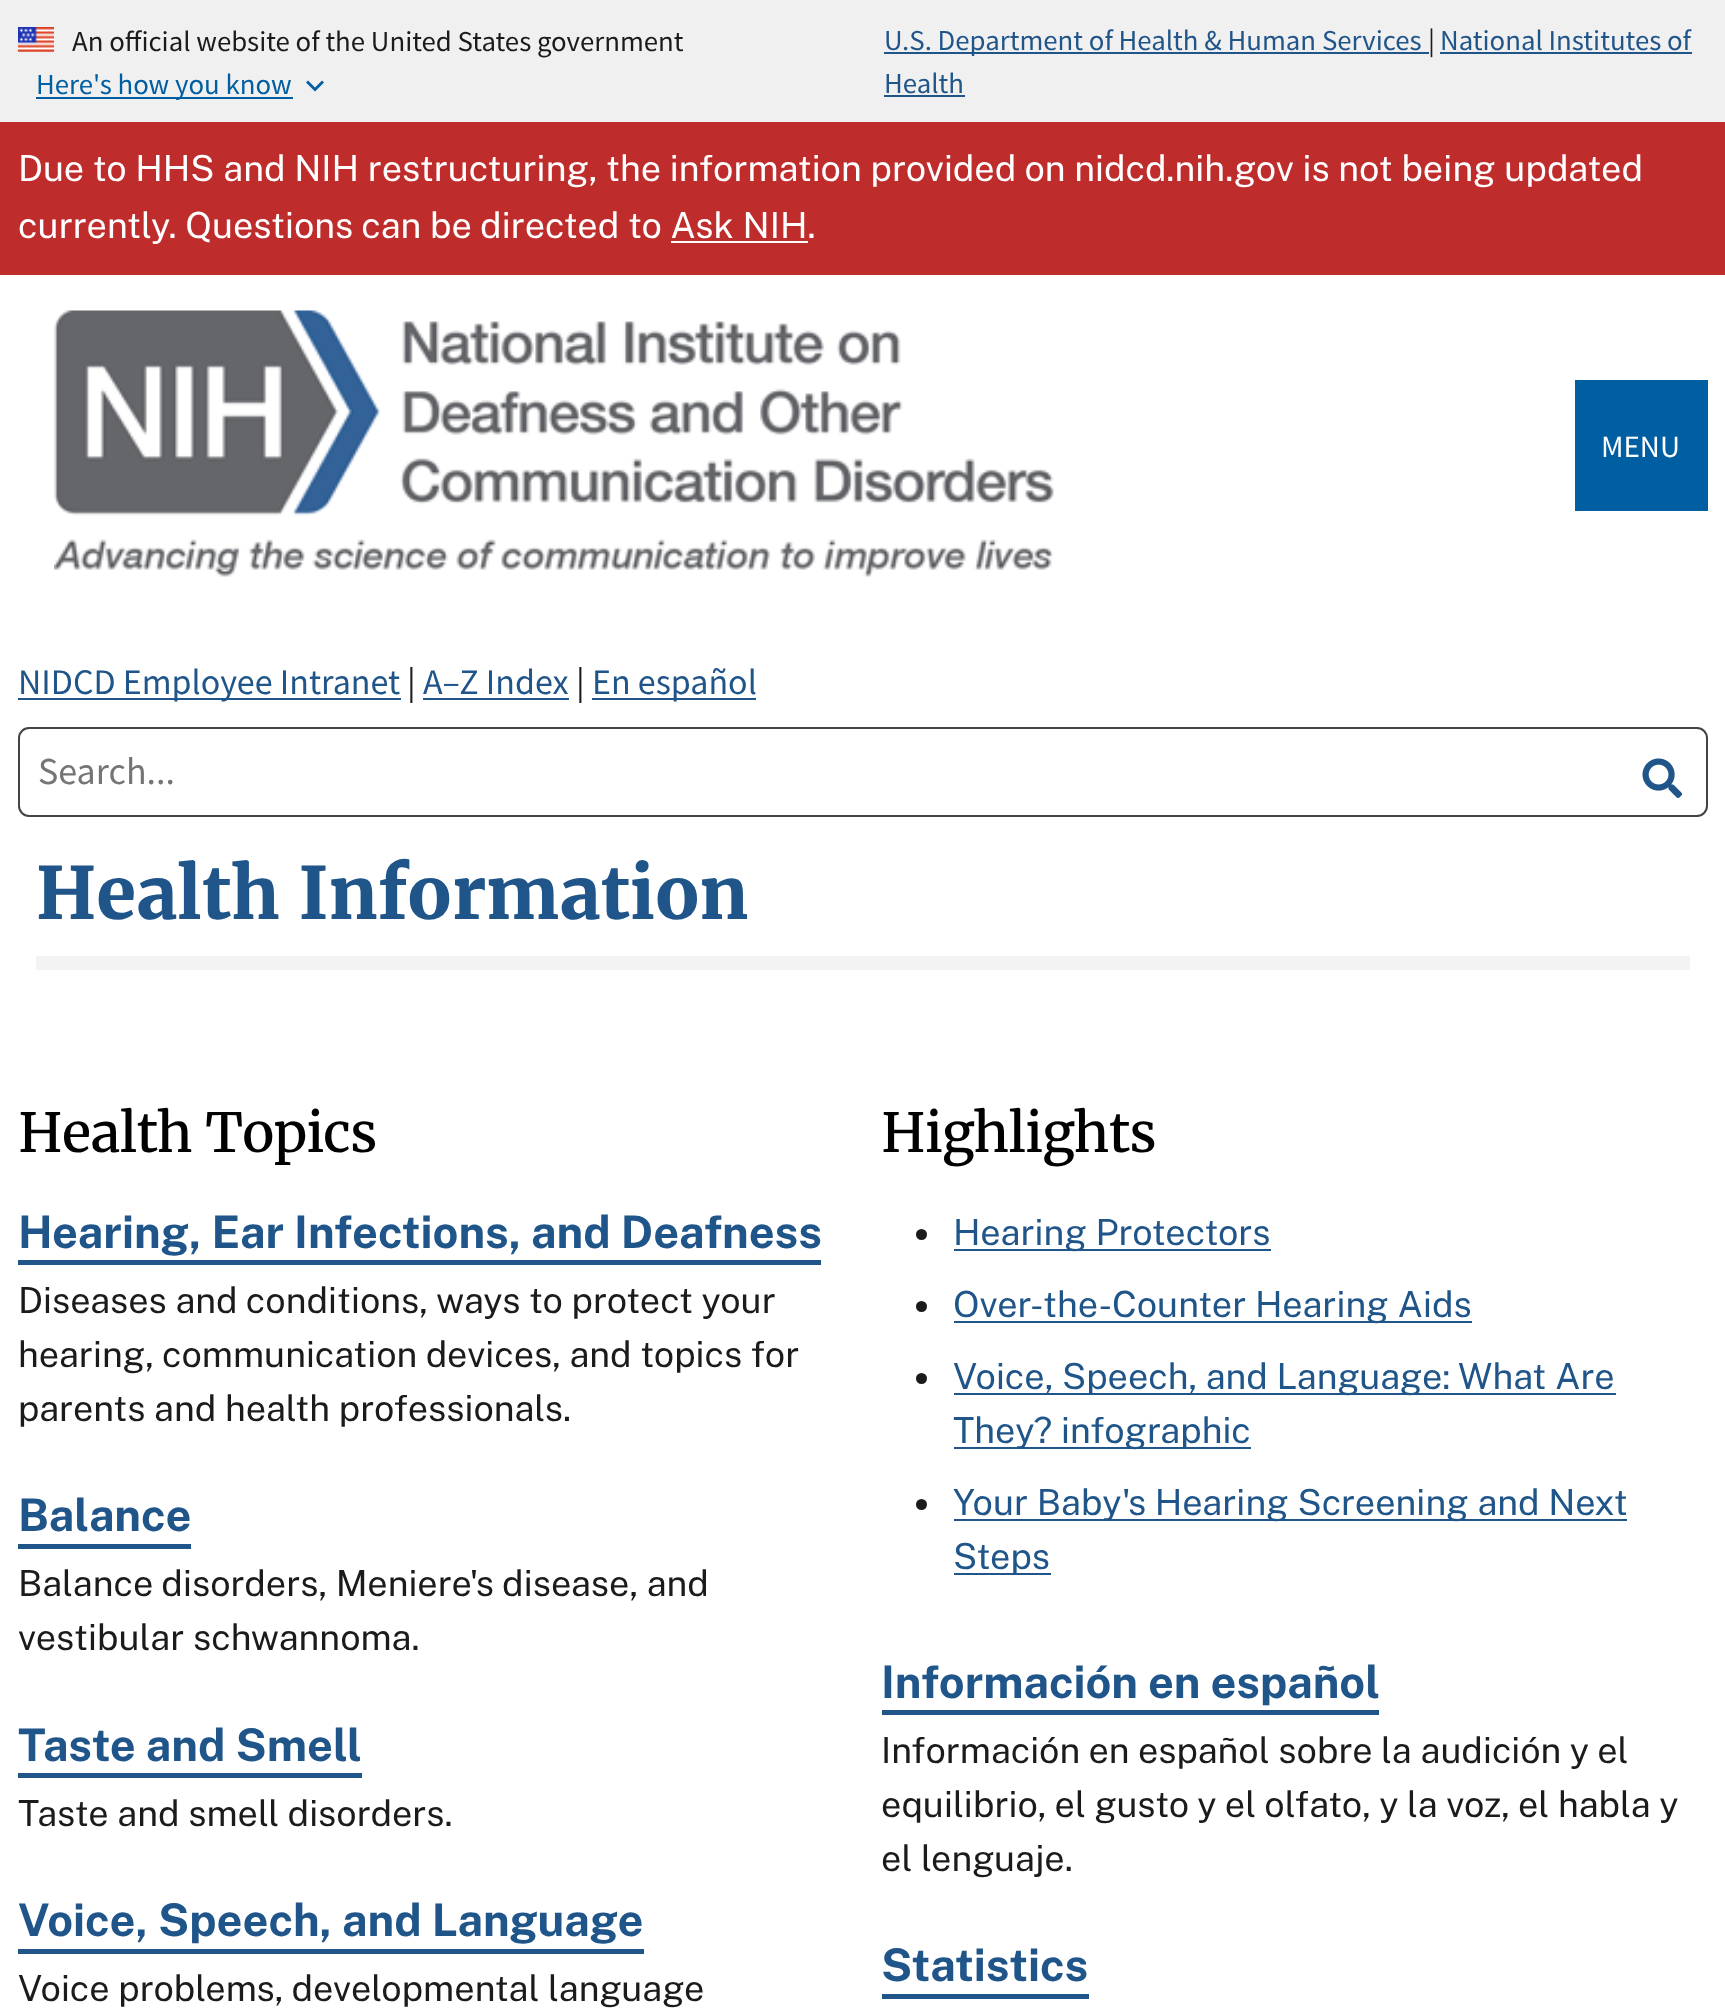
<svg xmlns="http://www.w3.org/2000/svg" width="1725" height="2009">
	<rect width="100%" height="100%" fill="#FFFFFF" />
	<rect x="0" y="0" width="1725" height="122" fill="#F0F0F0" />
	<image x="18" y="27" width="36" height="25" href="assets/img1.png" />
	<text x="72" y="51" font-family="Source Sans Pro" font-size="28.8" fill="#1B1B1B">An official website of the United States government</text>
	<rect x="36" y="97" width="257" height="2" fill="#005EA2" />
	<text x="36" y="94" font-family="Source Sans Pro" font-size="28.8" fill="#005EA2">Here's how you know</text>
	<path d="M322 80.5L315 87.5L308 80.5L306 82.5L315 91.5L324 82.5Z" fill="#005EA2" />
	<rect x="884" y="52" width="545" height="2" fill="#20558A" />
	<text x="884" y="50" font-family="Source Sans Pro" font-size="28.8" fill="#20558A">U.S. Department of Health &amp; Human Services</text>
	<text x="1428" y="50" font-family="Source Sans Pro" font-size="28.8" fill="#1B1B1B">|</text>
	<text x="1440" y="50" font-family="Source Sans Pro" font-size="28.8" fill="#20558A">National Institutes of</text>
	<rect x="1440" y="52" width="252" height="2" fill="#20558A" />
	<text x="884" y="93" font-family="Source Sans Pro" font-size="28.8" fill="#20558A">Health</text>
	<rect x="884" y="95" width="81" height="2" fill="#20558A" />
	<rect x="0" y="122" width="1725" height="153" fill="#BE2C2C" />
	<g font-family="Public Sans" font-size="36" fill="#FFFFFF">
		<text x="18" y="181">Due to HHS and NIH restructuring, the information provided on nidcd.nih.gov is not being updated</text>
		<text x="18" y="238">currently. Questions can be directed to Ask NIH.</text>
	</g>
	<rect x="671" y="241" width="137" height="2" fill="#FFFFFF" />
	<image x="54" y="310" width="1000" height="267" href="assets/img2.png" />
	<rect x="1575" y="380" width="133" height="131" fill="#005EA2" />
	<text x="1601" y="457" font-family="Source Sans Pro" font-size="31" fill="#FFFFFF">MENU</text>
	<rect x="18" y="698" width="383" height="2" fill="#20558A" />
	<text x="18" y="694" font-family="Source Sans Pro" font-size="36" fill="#20558A">NIDCD Employee Intranet</text>
	<text x="407" y="694" font-family="Source Sans Pro" font-size="36" fill="#1B1B1B">|</text>
	<text x="423" y="694" font-family="Source Sans Pro" font-size="36" fill="#20558A">A–Z Index</text>
	<rect x="423" y="698" width="146" height="2" fill="#20558A" />
	<text x="576" y="694" font-family="Source Sans Pro" font-size="36" fill="#1B1B1B">|</text>
	<rect x="592" y="698" width="164" height="2" fill="#20558A" />
	<text x="592" y="694" font-family="Source Sans Pro" font-size="36" fill="#20558A">En español</text>
	<rect x="19" y="728" width="1688" height="88" rx="10" fill="none" stroke="#444444" stroke-width="2" />
	<text x="38" y="784" font-family="Source Sans Pro" font-size="38" fill="#757575">Search...</text>
	<image x="1642" y="758" width="40" height="40" href="assets/img3.png" />
	<rect x="36" y="956" width="1654" height="14" fill="#F3F3F3" />
	<text x="36" y="919" font-family="Merriweather" font-size="72" font-weight="700" fill="#20558A">Health Information</text>
	<text x="18" y="1152" font-family="Merriweather" font-size="54" letter-spacing="-1.1" fill="#000000">Health Topics</text>
	<text x="18" y="1248" font-family="Public Sans" font-size="45" font-weight="700" fill="#20558A">Hearing, Ear Infections, and Deafness</text>
	<rect x="18" y="1260" width="803" height="5" fill="#20558A" />
	<g font-family="Public Sans" font-size="36" fill="#1B1B1B">
		<text x="18" y="1313">Diseases and conditions, ways to protect your</text>
		<text x="18" y="1367">hearing, communication devices, and topics for</text>
		<text x="18" y="1421">parents and health professionals.</text>
	</g>
	<text x="18" y="1531" font-family="Public Sans" font-size="45" font-weight="700" fill="#20558A">Balance</text>
	<rect x="18" y="1544" width="173" height="5" fill="#20558A" />
	<g font-family="Public Sans" font-size="36" fill="#1B1B1B">
		<text x="18" y="1596">Balance disorders, Meniere's disease, and</text>
		<text x="18" y="1650">vestibular schwannoma.</text>
	</g>
	<text x="18" y="1761" font-family="Public Sans" font-size="45" font-weight="700" fill="#20558A">Taste and Smell</text>
	<rect x="18" y="1773" width="344" height="5" fill="#20558A" />
	<text x="18" y="1826" font-family="Public Sans" font-size="36" fill="#1B1B1B">Taste and smell disorders.</text>
	<text x="18" y="1936" font-family="Public Sans" font-size="45" font-weight="700" fill="#20558A">Voice, Speech, and Language</text>
	<rect x="18" y="1949" width="626" height="5" fill="#20558A" />
	<text x="18" y="2001" font-family="Public Sans" font-size="36" fill="#1B1B1B">Voice problems, developmental language</text>
	<text x="881" y="1152" font-family="Merriweather" font-size="54" letter-spacing="-1.1" fill="#000000">Highlights</text>
	<circle cx="921.5" cy="1234.5" r="5.5" fill="#1B1B1B" />
	<rect x="954" y="1249" width="317" height="2" fill="#20558A" />
	<text x="953" y="1245" font-family="Public Sans" font-size="36" fill="#20558A">Hearing Protectors</text>
	<circle cx="921.5" cy="1306.5" r="5.5" fill="#1B1B1B" />
	<rect x="954" y="1321" width="518" height="2" fill="#20558A" />
	<text x="953" y="1317" font-family="Public Sans" font-size="36" fill="#20558A">Over-the-Counter Hearing Aids</text>
	<circle cx="921.5" cy="1378.5" r="5.5" fill="#1B1B1B" />
	<rect x="954" y="1393" width="662" height="2" fill="#20558A" />
	<text x="953" y="1389" font-family="Public Sans" font-size="36" fill="#20558A">Voice, Speech, and Language: What Are</text>
	<rect x="954" y="1447" width="297" height="2" fill="#20558A" />
	<text x="953" y="1443" font-family="Public Sans" font-size="36" fill="#20558A">They? infographic</text>
	<circle cx="921.5" cy="1504.5" r="5.5" fill="#1B1B1B" />
	<rect x="954" y="1519" width="673" height="2" fill="#20558A" />
	<text x="953" y="1515" font-family="Public Sans" font-size="36" fill="#20558A">Your Baby's Hearing Screening and Next</text>
	<rect x="954" y="1573" width="97" height="2" fill="#20558A" />
	<text x="953" y="1569" font-family="Public Sans" font-size="36" fill="#20558A">Steps</text>
	<text x="881" y="1698" font-family="Public Sans" font-size="45" font-weight="700" fill="#20558A">Información en español</text>
	<rect x="882" y="1710" width="497" height="5" fill="#20558A" />
	<g font-family="Public Sans" font-size="36" fill="#1B1B1B">
		<text x="881" y="1763">Información en español sobre la audición y el</text>
		<text x="881" y="1817">equilibrio, el gusto y el olfato, y la voz, el habla y</text>
		<text x="881" y="1871">el lenguaje.</text>
	</g>
	<text x="881" y="1981" font-family="Public Sans" font-size="45" font-weight="700" fill="#20558A">Statistics</text>
	<rect x="882" y="1994" width="207" height="5" fill="#20558A" />
</svg>
